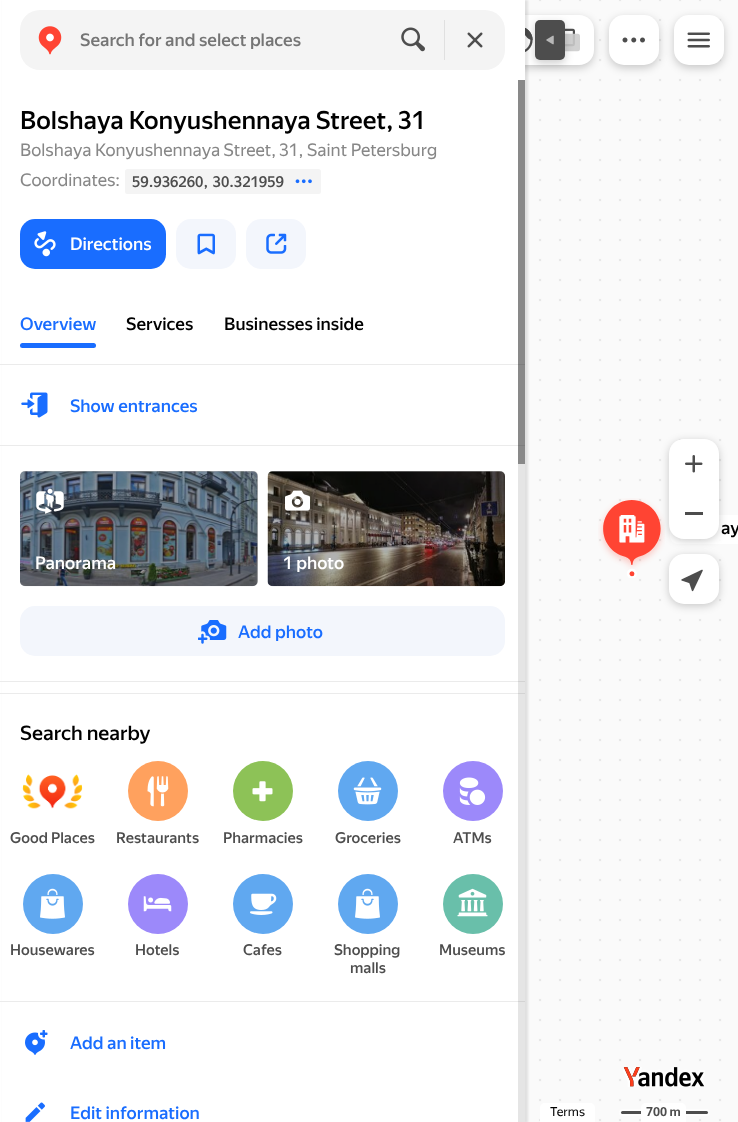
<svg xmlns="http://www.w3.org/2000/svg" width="738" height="1122">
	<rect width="100%" height="100%" fill="#FFFFFF" />
	<image x="525" y="0" width="213" height="1122" href="assets/img1.png" />
	<rect x="494" y="18" width="100" height="50" rx="15" fill="#000000" fill-opacity="0.2" filter="blur(4px)" />
	<rect x="525" y="15" width="19" height="50" fill="#FFFFFF" />
	<image x="525" y="27" width="8" height="25" href="assets/img5.png" />
	<rect x="3" y="0" width="525" height="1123" fill="#000000" fill-opacity="0.1" filter="blur(1px)" />
	<path d="M544 15H579C587.5 15 594 21.5 594 30V50C594 58.5 587.5 65 579 65H544Z" fill="#FFFFFF" />
	<image x="565" y="28" width="15" height="24" href="assets/img6.png" />
	<rect x="535" y="23" width="30" height="40" rx="5" fill="#000000" fill-opacity="0.2" filter="blur(4px)" />
	<rect x="2" y="0" width="523" height="1122" fill="#FFFFFF" />
	<rect x="20" y="10" width="485" height="60" rx="20" fill="#F4F4F4" />
	<image x="38" y="26" width="24" height="29" href="assets/img2.png" />
	<text x="80" y="46" font-family="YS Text" font-size="17.5" font-weight="500" fill="#757575">Search for and select places</text>
	<image x="401" y="27" width="24" height="25" href="assets/img3.png" />
	<rect x="444" y="20" width="1" height="40" fill="#E0E0E0" />
	<image x="467" y="32" width="16" height="16" href="assets/img4.png" />
	<rect x="609" y="18" width="50" height="50" rx="15" fill="#000000" fill-opacity="0.2" filter="blur(4px)" />
	<rect x="609" y="15" width="50" height="50" rx="15" fill="#FFFFFF" />
	<image x="622" y="37" width="23" height="6" href="assets/img7.png" />
	<rect x="674" y="18" width="50" height="50" rx="15" fill="#000000" fill-opacity="0.2" filter="blur(4px)" />
	<rect x="674" y="15" width="50" height="50" rx="15" fill="#FFFFFF" />
	<image x="687" y="32" width="23" height="16" href="assets/img8.png" />
	<image x="598" y="498" width="67" height="80" href="assets/img34.png" />
	<path d="M678 515H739V544H678C673.5 544 670 540.5 670 536V523C670 518.5 673.5 515 678 515Z" fill="#FFFFFF" fill-opacity="0.9" />
	<rect x="669" y="441" width="50" height="100" rx="15" fill="#000000" fill-opacity="0.2" filter="blur(4px)" />
	<path d="M684 439H704C712.5 439 719 445.5 719 454V489H669V454C669 445.5 675.5 439 684 439Z" fill="#FFFFFF" />
	<image x="685" y="455" width="18" height="18" href="assets/img9.png" />
	<path d="M669 489H719V524C719 532.5 712.5 539 704 539H684C675.5 539 669 532.5 669 524Z" fill="#FFFFFF" />
	<rect x="685" y="512" width="18" height="3" fill="#4D4D4D" />
	<rect x="669" y="556" width="50" height="50" rx="15" fill="#000000" fill-opacity="0.2" filter="blur(4px)" />
	<rect x="669" y="554" width="50" height="50" rx="15" fill="#FFFFFF" />
	<image x="681" y="569" width="22" height="23" href="assets/img10.png" />
	<rect x="535" y="20" width="30" height="40" rx="5" fill="#4D4D4D" />
	<image x="546" y="35" width="8" height="10" href="assets/img11.png" />
	<text x="20" y="129" font-family="YS Text" font-size="25" font-weight="500" fill="#000000">Bolshaya Konyushennaya Street, 31</text>
	<g font-family="YS Text" font-size="17.5" fill="#878787">
		<text x="20" y="156">Bolshaya Konyushennaya Street, 31, Saint Petersburg</text>
		<text x="20" y="186">Coordinates:</text>
	</g>
	<rect x="125" y="169" width="196" height="25" rx="2.5" fill="#F4F4F4" />
	<text x="132" y="187" font-family="YS Text" font-size="15" font-weight="500" fill="#4D4D4D">59.936260, 30.321959</text>
	<image x="295" y="179" width="17" height="5" href="assets/img12.png" />
	<rect x="20" y="219" width="146" height="50" rx="15" fill="#196DFF" />
	<image x="34" y="231" width="22" height="26" href="assets/img13.png" />
	<text x="70" y="250" font-family="YS Text" font-size="17.5" font-weight="500" fill="#FFFFFF">Directions</text>
	<rect x="176" y="219" width="60" height="50" rx="15" fill="#F3F6FC" />
	<image x="197" y="233" width="18" height="22" href="assets/img14.png" />
	<rect x="246" y="219" width="60" height="50" rx="15" fill="#F3F6FC" />
	<image x="266" y="233" width="21" height="21" href="assets/img15.png" />
	<text x="20" y="330" font-family="YS Text" font-size="17.5" font-weight="500" fill="#196DFF">Overview</text>
	<g font-family="YS Text" font-size="17.5" font-weight="500" fill="#000000">
		<text x="126" y="330">Services</text>
		<text x="224" y="330">Businesses inside</text>
	</g>
	<rect x="20" y="343" width="76" height="5" rx="2.5" fill="#196DFF" />
	<rect x="0" y="364" width="525" height="1" fill="#EBEBEB" />
	<rect x="0" y="445" width="525" height="1" fill="#EBEBEB" />
	<image x="21" y="392" width="27" height="26" href="assets/img16.png" />
	<text x="70" y="412" font-family="YS Text" font-size="17.5" font-weight="500" fill="#196DFF">Show entrances</text>
	<rect x="0" y="681" width="525" height="1" fill="#EBEBEB" />
	<image x="20" y="471" width="238" height="116" href="assets/img17.png" />
	<rect x="20" y="471" width="238" height="115" rx="5" fill="#000000" fill-opacity="0.3" />
	<image x="36" y="488" width="28" height="26" href="assets/img18.png" />
	<text x="35" y="569" font-family="YS Text" font-size="17.5" font-weight="500" fill="#FFFFFF">Panorama</text>
	<image x="267" y="471" width="238" height="116" href="assets/img19.png" />
	<rect x="268" y="471" width="237" height="115" rx="5" fill="#000000" fill-opacity="0.3" />
	<image x="285" y="490" width="25" height="21" href="assets/img20.png" />
	<text x="283" y="569" font-family="YS Text" font-size="17.5" font-weight="500" fill="#FFFFFF">1 photo</text>
	<rect x="20" y="606" width="485" height="50" rx="15" fill="#F3F6FC" />
	<image x="198" y="620" width="29" height="24" href="assets/img21.png" />
	<text x="238" y="638" font-family="YS Text" font-size="17.5" font-weight="500" fill="#196DFF">Add photo</text>
	<rect x="0" y="693" width="525" height="1" fill="#EBEBEB" />
	<rect x="0" y="1001" width="525" height="1" fill="#EBEBEB" />
	<text x="20" y="740" font-family="YS Text" font-size="20" font-weight="500" fill="#000000">Search nearby</text>
	<image x="22" y="774" width="61" height="35" href="assets/img22.png" />
	<text x="10" y="843" font-family="YS Text" font-size="15" font-weight="500" fill="#4D4D4D">Good Places</text>
	<circle cx="158" cy="791" r="30" fill="#FFA15E" />
	<image x="147" y="776" width="22" height="31" href="assets/img23.png" />
	<text x="116" y="843" font-family="YS Text" font-size="15" font-weight="500" fill="#4D4D4D">Restaurants</text>
	<circle cx="263" cy="791" r="30" fill="#8DC257" />
	<image x="252" y="781" width="21" height="21" href="assets/img24.png" />
	<text x="223" y="843" font-family="YS Text" font-size="15" font-weight="500" fill="#4D4D4D">Pharmacies</text>
	<circle cx="368" cy="791" r="30" fill="#60A8F0" />
	<image x="353" y="777" width="29" height="28" href="assets/img25.png" />
	<text x="335" y="843" font-family="YS Text" font-size="15" font-weight="500" fill="#4D4D4D">Groceries</text>
	<circle cx="473" cy="791" r="30" fill="#9C89FA" />
	<image x="459" y="777" width="27" height="28" href="assets/img26.png" />
	<text x="453" y="843" font-family="YS Text" font-size="15" font-weight="500" fill="#4D4D4D">ATMs</text>
	<circle cx="53" cy="904" r="30" fill="#60A8F0" />
	<image x="40" y="888" width="25" height="31" href="assets/img27.png" />
	<text x="10" y="955" font-family="YS Text" font-size="15" font-weight="500" fill="#4D4D4D">Housewares</text>
	<circle cx="158" cy="904" r="30" fill="#9C89FA" />
	<image x="143" y="896" width="29" height="16" href="assets/img28.png" />
	<text x="135" y="955" font-family="YS Text" font-size="15" font-weight="500" fill="#4D4D4D">Hotels</text>
	<circle cx="263" cy="904" r="30" fill="#60A8F0" />
	<image x="250" y="893" width="27" height="22" href="assets/img29.png" />
	<text x="243" y="955" font-family="YS Text" font-size="15" font-weight="500" fill="#4D4D4D">Cafes</text>
	<circle cx="368" cy="904" r="30" fill="#60A8F0" />
	<image x="355" y="888" width="25" height="31" href="assets/img27.png" />
	<g font-family="YS Text" font-size="15" font-weight="500" fill="#4D4D4D">
		<text x="334" y="955">Shopping</text>
		<text x="350" y="973">malls</text>
	</g>
	<circle cx="473" cy="904" r="30" fill="#69BFAA" />
	<image x="457" y="888" width="31" height="29" href="assets/img30.png" />
	<text x="439" y="955" font-family="YS Text" font-size="15" font-weight="500" fill="#4D4D4D">Museums</text>
	<image x="25" y="1030" width="23" height="25" href="assets/img31.png" />
	<text x="70" y="1049" font-family="YS Text" font-size="17.5" font-weight="500" fill="#196DFF">Add an item</text>
	<image x="25" y="1102" width="20" height="20" href="assets/img32.png" />
	<text x="70" y="1119" font-family="YS Text" font-size="17.5" font-weight="500" fill="#196DFF">Edit information</text>
	<rect x="518" y="80" width="7" height="1042" fill="#000000" fill-opacity="0.1" />
	<rect x="518" y="80" width="7" height="384" fill="#000000" fill-opacity="0.4" />
	<image x="623" y="1067" width="82" height="20" href="assets/img33.png" />
	<path d="M545 1103H590C593 1103 595 1105 595 1108V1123H540V1108C540 1105 542 1103 545 1103Z" fill="#FFFFFF" />
	<text x="550" y="1116" font-family="YS Text" font-size="12.5" fill="#000000">Terms</text>
	<rect x="619" y="1109" width="91" height="7" rx="3.5" fill="#FDFDFD" />
	<rect x="621" y="1111" width="87" height="3" rx="1.5" fill="#4D4D4D" />
	<path d="M646 1103H681C684 1103 686 1105 686 1108V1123H641V1108C641 1105 643 1103 646 1103Z" fill="#FFFFFF" />
	<text x="646" y="1116" font-family="YS Text" font-size="12.5" font-weight="700" fill="#4D4D4D">700 m</text>
	<image x="619" y="515" width="26" height="28" href="assets/img35.png" />
	<text x="721" y="534" font-family="YS Text" font-size="17.5" font-weight="500" fill="#000000">ay</text>
</svg>
